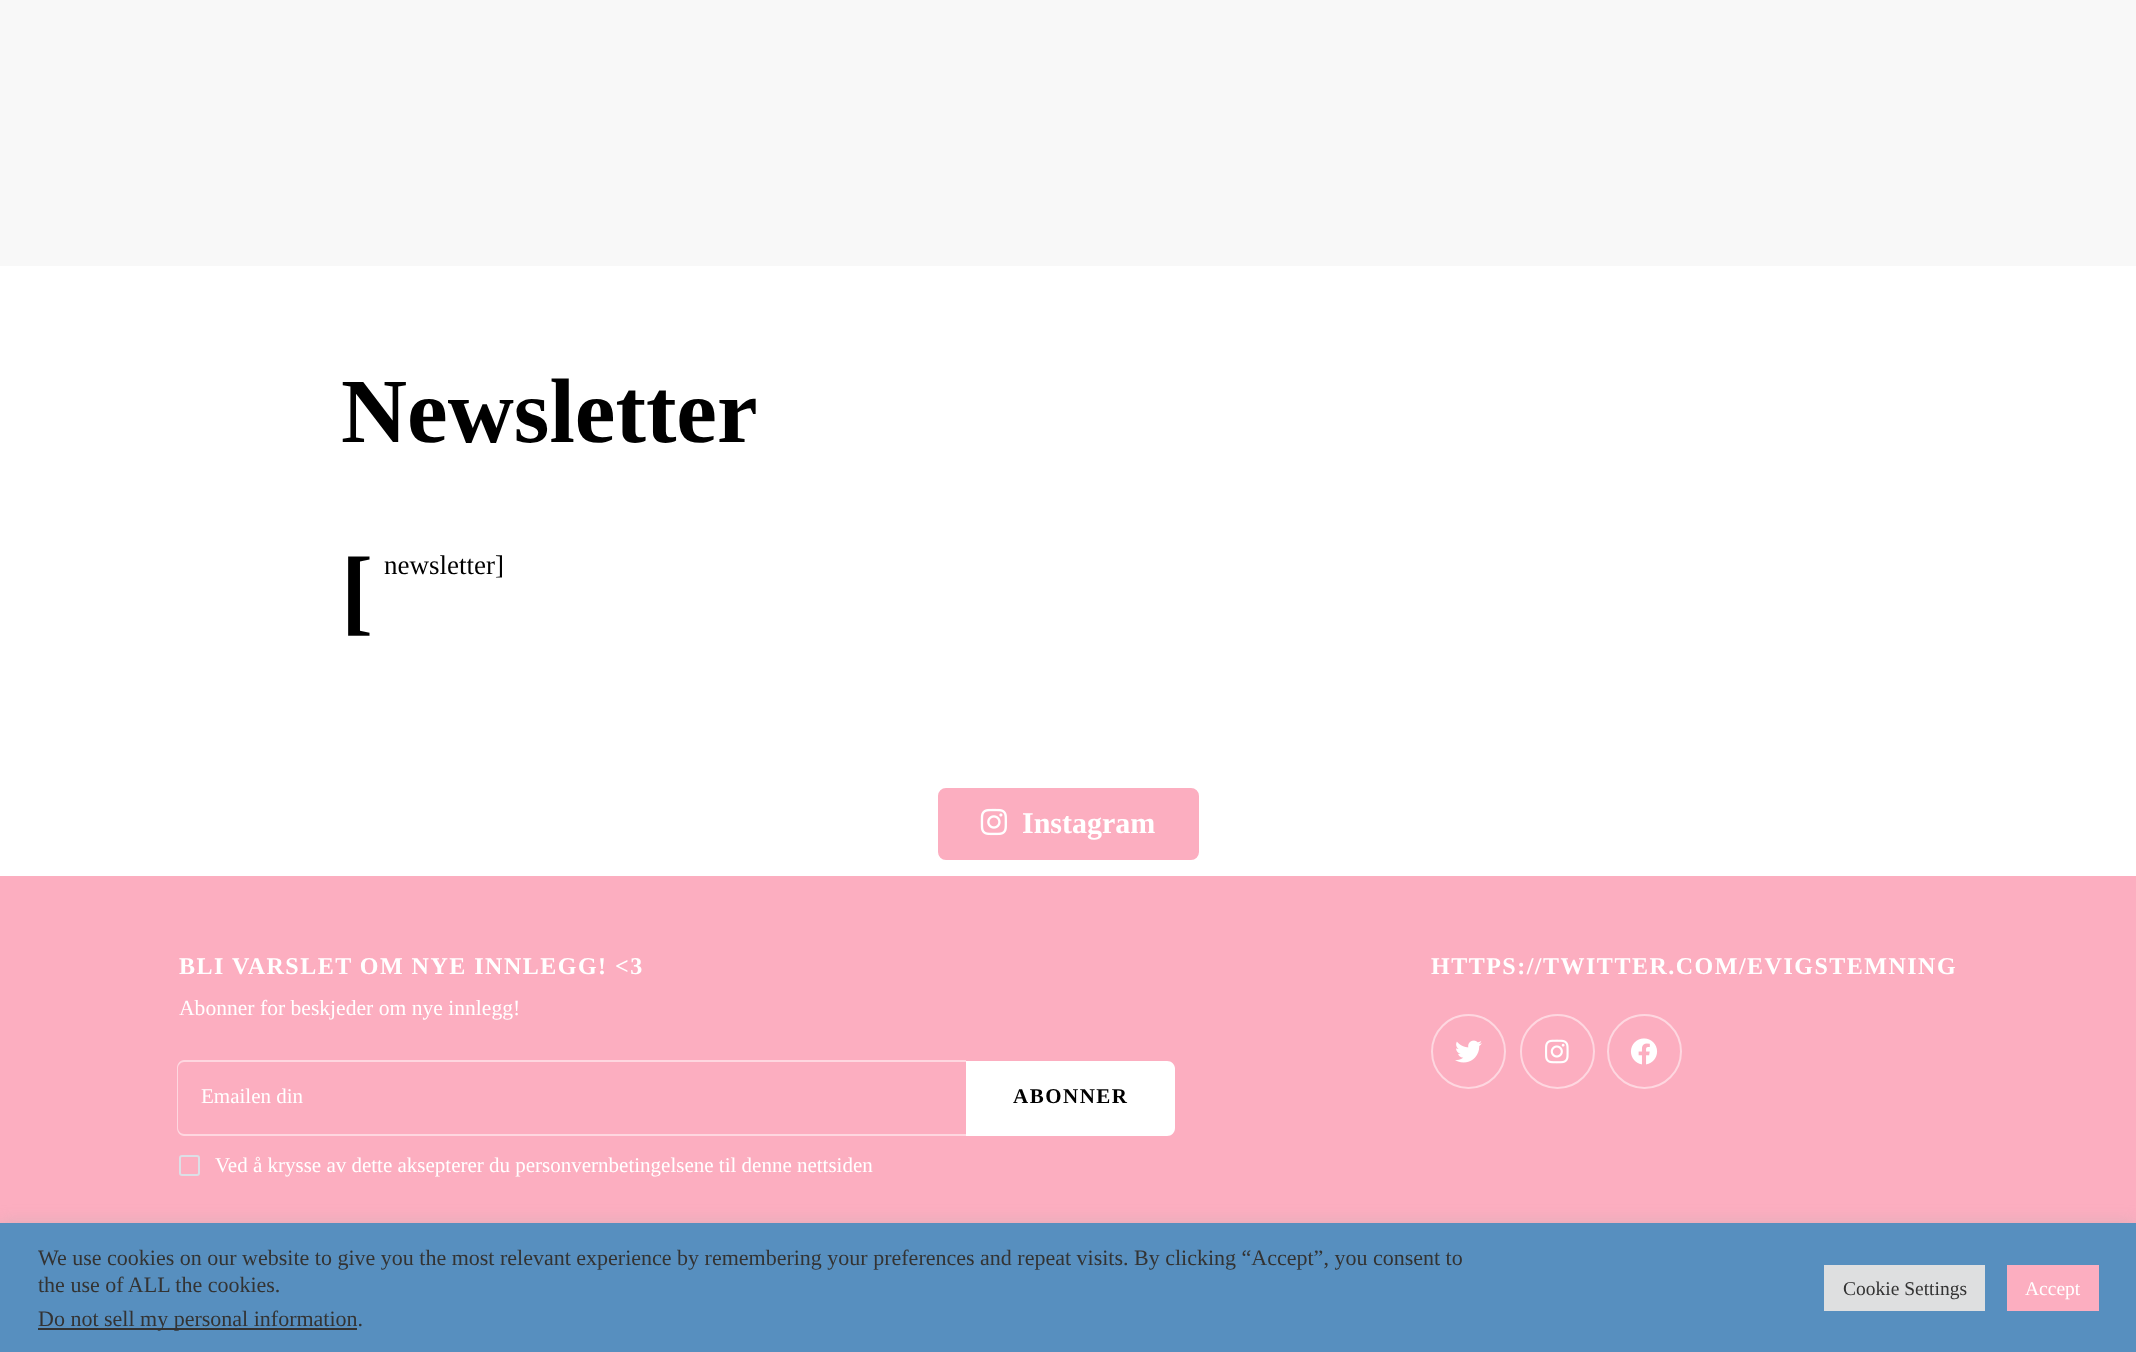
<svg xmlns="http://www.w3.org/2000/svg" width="2136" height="1352">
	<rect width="100%" height="100%" fill="#F8F8F8" />
	<rect x="0" y="266" width="2136" height="610" fill="#FFFFFF" />
	<text x="341" y="442" font-family="Liberation Serif" font-size="91.5" font-weight="700" fill="#000000">Newsletter</text>
	<text x="341" y="623" font-family="Liberation Serif" font-size="96" font-weight="700" fill="#000000">[</text>
	<text x="384" y="574" font-family="Liberation Serif" font-size="27" fill="#000000">newsletter]</text>
	<rect x="939" y="789" width="259" height="70" rx="7" fill="#FCAEC0" stroke="#FCAEC0" stroke-width="2" />
	<image x="980" y="808" width="27" height="28" href="assets/img1.png" />
	<text x="1022" y="833" font-family="Liberation Serif" font-size="30" font-weight="700" fill="#FFFFFF">Instagram</text>
	<rect x="0" y="876" width="2136" height="347" fill="#FCAEC0" />
	<text x="179" y="974" font-family="Liberation Serif" font-size="24" font-weight="700" letter-spacing="1.5" fill="#FFFFFF">BLI VARSLET OM NYE INNLEGG! &lt;3</text>
	<text x="179" y="1015" font-family="Liberation Serif" font-size="21.6" fill="#FFFFFF">Abonner for beskjeder om nye innlegg!</text>
	<path d="M184 1060H966V1136H184C180 1136 177 1132 177 1128V1068C177 1064 180 1060 184 1060ZM184 1062H966V1134H184C181 1134 178 1131 178 1128V1068C178 1065 181 1062 184 1062Z" fill="#FED7E0" fill-rule="evenodd" />
	<text x="201" y="1103" font-family="Liberation Serif" font-size="21" fill="#FFFFFF">Emailen din</text>
	<path d="M966 1061H1167C1171.5 1061 1175 1064.5 1175 1069V1128C1175 1132.5 1171.5 1136 1167 1136H966Z" fill="#FFFFFF" />
	<text x="1013" y="1103" font-family="Liberation Serif" font-size="21" font-weight="700" letter-spacing="1.5" fill="#000000">ABONNER</text>
	<rect x="180" y="1156" width="19" height="19" rx="2" fill="none" stroke="#DCDFE6" stroke-width="2" />
	<text x="215" y="1172" font-family="Liberation Serif" font-size="21" fill="#FFFFFF">Ved å krysse av dette aksepterer du personvernbetingelsene til denne nettsiden</text>
	<text x="1431" y="974" font-family="Liberation Serif" font-size="24" font-weight="700" letter-spacing="1.5" fill="#FFFFFF">HTTPS://TWITTER.COM/EVIGSTEMNING</text>
	<circle cx="1468.5" cy="1051.5" r="36.5" fill="none" stroke="#FED7E0" stroke-width="2" />
	<image x="1455" y="1040" width="27" height="23" href="assets/img2.png" />
	<circle cx="1557.5" cy="1051.5" r="36.5" fill="none" stroke="#FED7E0" stroke-width="2" />
	<image x="1545" y="1039" width="24" height="25" href="assets/img3.png" />
	<circle cx="1644.5" cy="1051.5" r="36.5" fill="none" stroke="#FED7E0" stroke-width="2" />
	<image x="1630" y="1038" width="28" height="27" href="assets/img4.png" />
	<rect x="0" y="1221" width="2136" height="131" fill="#ACABAB" fill-opacity="0.3" filter="blur(7.5px)" />
	<rect x="0" y="1223" width="2136" height="129" fill="#578FBF" />
	<g font-family="Liberation Serif" font-size="22" fill="#333333">
		<text x="38" y="1265">We use cookies on our website to give you the most relevant experience by remembering your preferences and repeat visits. By clicking “Accept”, you consent to</text>
		<text x="38" y="1292">the use of ALL the cookies.</text>
	</g>
	<rect x="38" y="1328" width="319" height="2" fill="#333333" />
	<text x="38" y="1326" font-family="Liberation Serif" font-size="22" fill="#333333">Do not sell my personal information.</text>
	<rect x="1824" y="1265" width="161" height="46" fill="#DEDFE0" />
	<text x="1843" y="1295" font-family="Liberation Serif" font-size="19.5" fill="#333333">Cookie Settings</text>
	<rect x="2007" y="1265" width="92" height="46" fill="#FCAEC0" />
	<text x="2025" y="1295" font-family="Liberation Serif" font-size="19.5" fill="#FFFFFF">Accept</text>
</svg>
